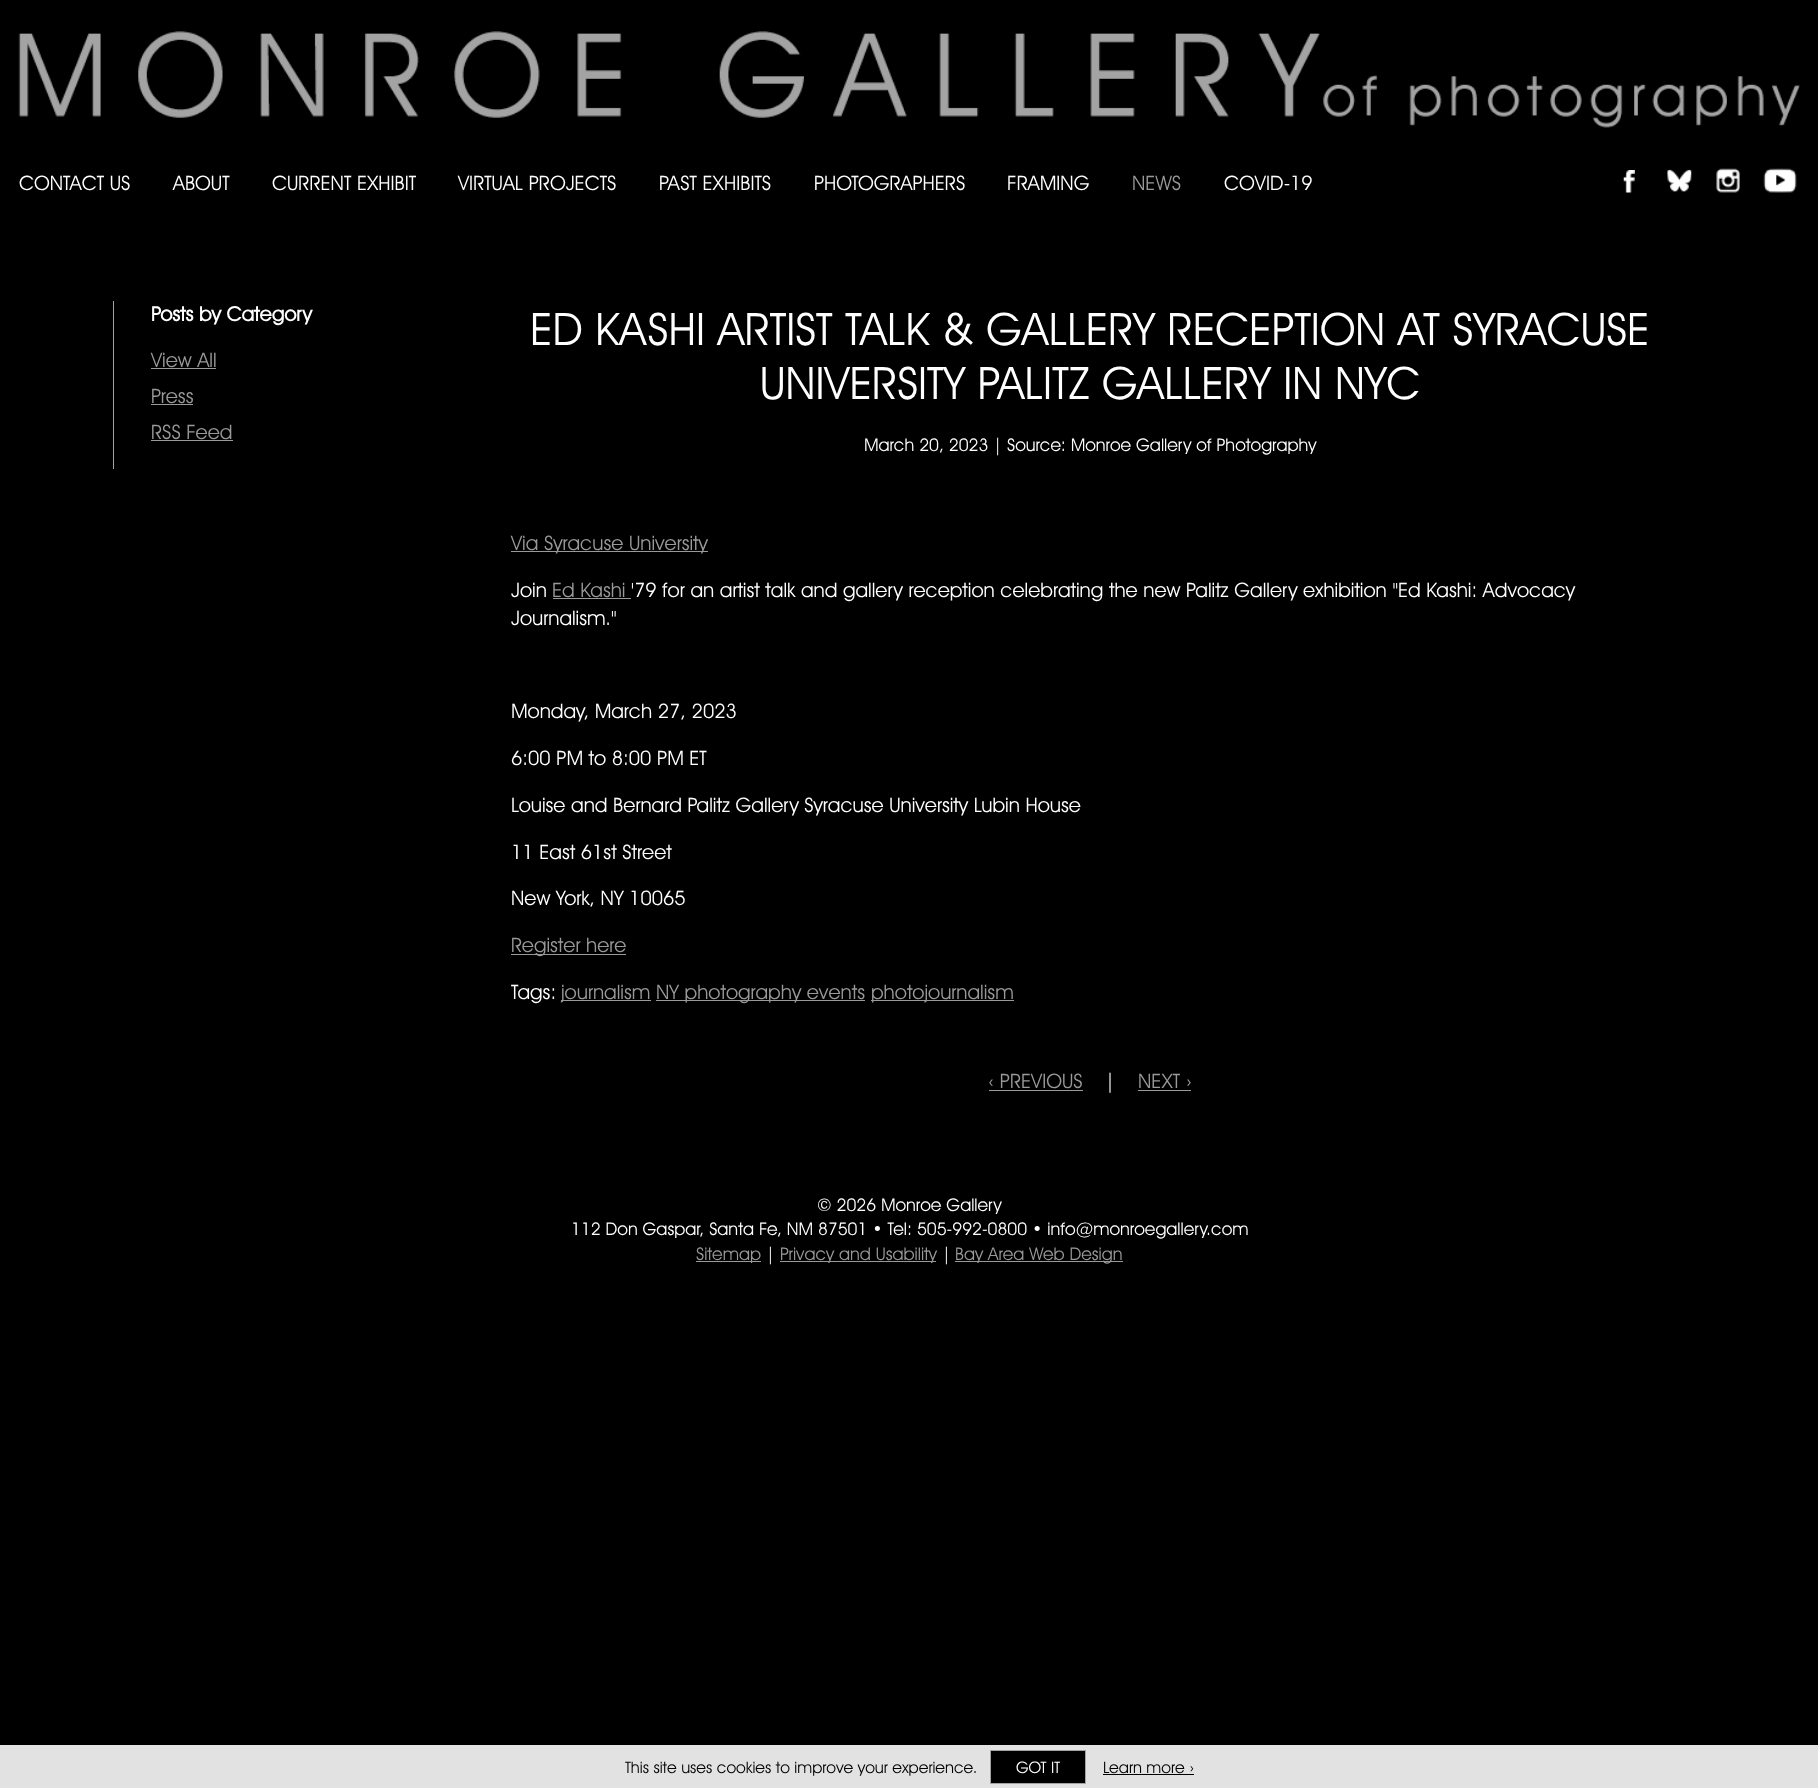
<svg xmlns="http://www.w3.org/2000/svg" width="1818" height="1788">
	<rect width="100%" height="100%" fill="#000000" />
	<image x="18" y="31" width="1782" height="97" href="assets/img1.png" />
	<image x="18" y="31" width="1782" height="97" href="assets/img2.png" />
	<g font-family="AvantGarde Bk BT" font-size="20" fill="#FFFFFF">
		<text x="19" y="190">CONTACT US</text>
		<text x="173" y="190">ABOUT</text>
		<text x="272" y="190">CURRENT EXHIBIT</text>
		<text x="458" y="190">VIRTUAL PROJECTS</text>
		<text x="659" y="190">PAST EXHIBITS</text>
		<text x="814" y="190">PHOTOGRAPHERS</text>
		<text x="1007" y="190">FRAMING</text>
	</g>
	<text x="1132" y="190" font-family="AvantGarde Bk BT" font-size="20" fill="#999999">NEWS</text>
	<text x="1224" y="190" font-family="AvantGarde Bk BT" font-size="20" fill="#FFFFFF">COVID-19</text>
	<image x="1623" y="170" width="12" height="23" href="assets/img3.png" />
	<image x="1667" y="169" width="25" height="23" href="assets/img4.png" />
	<image x="1716" y="168" width="24" height="25" href="assets/img5.png" />
	<image x="1763" y="168" width="34" height="25" href="assets/img6.png" />
	<rect x="113" y="301" width="1" height="168" fill="#A2A2A2" />
	<text x="151" y="321" font-family="AvantGarde Bk BT" font-size="20" font-weight="700" fill="#FFFFFF">Posts by Category</text>
	<text x="151" y="367" font-family="AvantGarde Bk BT" font-size="20" fill="#999999">View All</text>
	<rect x="151" y="368" width="65" height="1" fill="#999999" />
	<text x="151" y="403" font-family="AvantGarde Bk BT" font-size="20" fill="#999999">Press</text>
	<rect x="151" y="404" width="42" height="1" fill="#999999" />
	<text x="151" y="439" font-family="AvantGarde Bk BT" font-size="20" fill="#999999">RSS Feed</text>
	<rect x="151" y="440" width="82" height="1" fill="#999999" />
	<g font-family="AvantGarde Bk BT" font-size="45" fill="#FFFFFF">
		<text x="530" y="345">ED KASHI ARTIST TALK &amp; GALLERY RECEPTION AT SYRACUSE</text>
		<text x="760" y="399">UNIVERSITY PALITZ GALLERY IN NYC</text>
	</g>
	<text x="864" y="451" font-family="AvantGarde Bk BT" font-size="17.5" fill="#FFFFFF">March 20, 2023 | Source: Monroe Gallery of Photography</text>
	<rect x="511" y="551" width="197" height="1" fill="#999999" />
	<text x="511" y="550" font-family="AvantGarde Bk BT" font-size="20" fill="#999999">Via Syracuse University</text>
	<text x="511" y="597" font-family="AvantGarde Bk BT" font-size="20" fill="#FFFFFF">Join</text>
	<text x="552" y="597" font-family="AvantGarde Bk BT" font-size="20" fill="#999999">Ed Kashi</text>
	<rect x="553" y="598" width="78" height="1" fill="#999999" />
	<g font-family="AvantGarde Bk BT" font-size="20" fill="#FFFFFF">
		<text x="631" y="597">'79 for an artist talk and gallery reception celebrating the new Palitz Gallery exhibition "Ed Kashi: Advocacy</text>
		<text x="511" y="625">Journalism."</text>
		<text x="511" y="718">Monday, March 27, 2023</text>
		<text x="511" y="765">6:00 PM to 8:00 PM ET</text>
		<text x="511" y="812">Louise and Bernard Palitz Gallery Syracuse University Lubin House</text>
		<text x="511" y="859">11 East 61st Street</text>
		<text x="511" y="905">New York, NY 10065</text>
	</g>
	<rect x="511" y="954" width="115" height="1" fill="#999999" />
	<text x="511" y="952" font-family="AvantGarde Bk BT" font-size="20" fill="#999999">Register here</text>
	<text x="511" y="999" font-family="AvantGarde Bk BT" font-size="20" fill="#FFFFFF">Tags:</text>
	<rect x="561" y="1000" width="90" height="1" fill="#999999" />
	<text x="561" y="999" font-family="AvantGarde Bk BT" font-size="20" fill="#999999">journalism</text>
	<rect x="656" y="1000" width="209" height="1" fill="#999999" />
	<text x="656" y="999" font-family="AvantGarde Bk BT" font-size="20" fill="#999999">NY photography events</text>
	<rect x="871" y="1000" width="143" height="1" fill="#999999" />
	<g font-family="AvantGarde Bk BT" font-size="20" fill="#999999">
		<text x="871" y="999">photojournalism</text>
		<text x="988" y="1088">‹ PREVIOUS</text>
	</g>
	<rect x="989" y="1090" width="94" height="1" fill="#999999" />
	<text x="1105" y="1088" font-family="AvantGarde Bk BT" font-size="20" fill="#FFFFFF">|</text>
	<text x="1138" y="1088" font-family="AvantGarde Bk BT" font-size="20" fill="#999999">NEXT ›</text>
	<rect x="1138" y="1090" width="53" height="1" fill="#999999" />
	<g font-family="AvantGarde Bk BT" font-size="17.5" fill="#FFFFFF">
		<text x="817" y="1211">© 2026 Monroe Gallery</text>
		<text x="571" y="1235">112 Don Gaspar, Santa Fe, NM 87501 • Tel: 505-992-0800 • info@monroegallery.com</text>
	</g>
	<rect x="696" y="1261" width="65" height="1" fill="#999999" />
	<text x="696" y="1260" font-family="AvantGarde Bk BT" font-size="17.5" fill="#999999">Sitemap</text>
	<text x="766" y="1260" font-family="AvantGarde Bk BT" font-size="17.5" fill="#FFFFFF">|</text>
	<rect x="780" y="1261" width="156" height="1" fill="#999999" />
	<text x="780" y="1260" font-family="AvantGarde Bk BT" font-size="17.5" fill="#999999">Privacy and Usability</text>
	<text x="942" y="1260" font-family="AvantGarde Bk BT" font-size="17.5" fill="#FFFFFF">|</text>
	<rect x="955" y="1261" width="168" height="1" fill="#999999" />
	<text x="955" y="1260" font-family="AvantGarde Bk BT" font-size="17.5" fill="#999999">Bay Area Web Design</text>
	<rect x="0" y="1745" width="1818" height="43" fill="#E2E2E2" />
	<text x="625" y="1773" font-family="AvantGarde Bk BT" font-size="16" fill="#000000">This site uses cookies to improve your experience.</text>
	<rect x="990.5" y="1750.5" width="95" height="33" fill="#000000" stroke="#A3A3A3" />
	<text x="1016" y="1773" font-family="AvantGarde Bk BT" font-size="16" fill="#FFFFFF">GOT IT</text>
	<text x="1103" y="1773" font-family="AvantGarde Bk BT" font-size="16" fill="#000000">Learn more ›</text>
	<rect x="1103" y="1774" width="91" height="1" fill="#000000" />
</svg>
